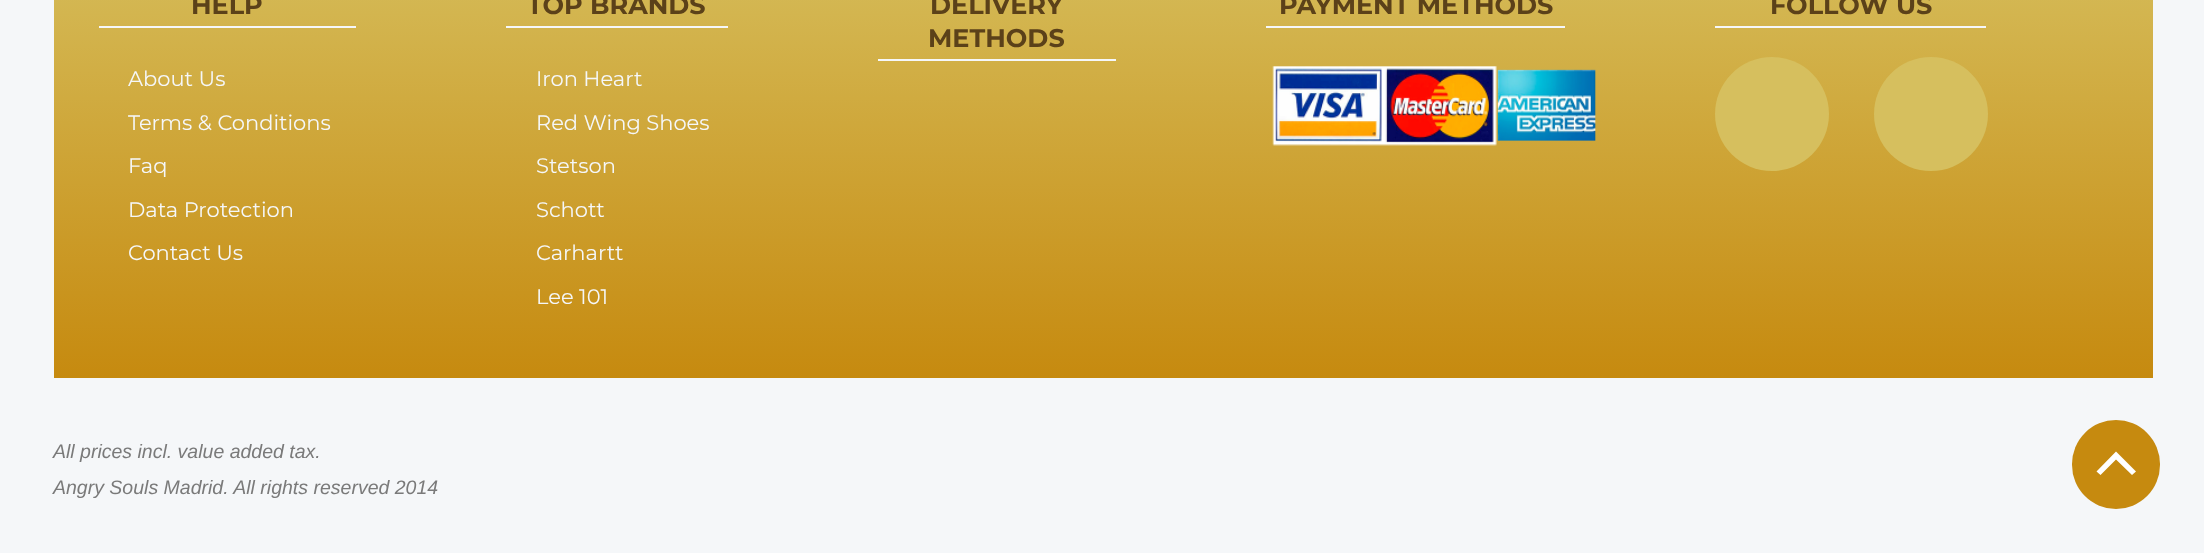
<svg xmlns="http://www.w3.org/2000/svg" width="2204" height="553">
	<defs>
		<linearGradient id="g1" gradientUnits="userSpaceOnUse" x1="1103" y1="-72" x2="1103" y2="378"><stop offset="0" stop-color="#D6BF5E" /><stop offset="1" stop-color="#C68A0F" /></linearGradient>
	</defs>
	<rect width="100%" height="100%" fill="#F5F7F9" />
	<rect x="54" y="0" width="2099" height="378" fill="url(#g1)" />
	<rect x="99" y="26" width="257" height="2" fill="#F5F7F9" />
	<text x="191" y="14" font-family="Montserrat" font-size="25.5" font-weight="700" fill="#5B4119">HELP</text>
	<g font-family="Montserrat" font-size="21" fill="#F5F7F9">
		<text x="128" y="86">About Us</text>
		<text x="128" y="130">Terms &amp; Conditions</text>
		<text x="128" y="173">Faq</text>
		<text x="128" y="217">Data Protection</text>
		<text x="128" y="260">Contact Us</text>
	</g>
	<rect x="506" y="26" width="222" height="2" fill="#F5F7F9" />
	<text x="527" y="14" font-family="Montserrat" font-size="25.5" font-weight="700" fill="#5B4119">TOP BRANDS</text>
	<g font-family="Montserrat" font-size="21" fill="#F5F7F9">
		<text x="536" y="86">Iron Heart</text>
		<text x="536" y="130">Red Wing Shoes</text>
		<text x="536" y="173">Stetson</text>
		<text x="536" y="217">Schott</text>
		<text x="536" y="260">Carhartt</text>
		<text x="536" y="304">Lee 101</text>
	</g>
	<rect x="878" y="59" width="238" height="2" fill="#F5F7F9" />
	<g font-family="Montserrat" font-size="25.5" font-weight="700" fill="#5B4119">
		<text x="930" y="14">DELIVERY</text>
		<text x="928" y="47">METHODS</text>
	</g>
	<rect x="1266" y="26" width="299" height="2" fill="#F5F7F9" />
	<text x="1279" y="14" font-family="Montserrat" font-size="25.5" font-weight="700" fill="#5B4119">PAYMENT METHODS</text>
	<image x="1272" y="66" width="324" height="80" href="assets/img1.png" />
	<rect x="1715" y="26" width="271" height="2" fill="#F5F7F9" />
	<text x="1770" y="14" font-family="Montserrat" font-size="25.5" font-weight="700" fill="#5B4119">FOLLOW US</text>
	<circle cx="1772" cy="114" r="57" fill="#D6BF5E" />
	<circle cx="1931" cy="114" r="57" fill="#D6BF5E" />
	<g font-family="Liberation Sans" font-size="19.5" font-style="italic" fill="#7A7A7A">
		<text x="53" y="458">All prices incl. value added tax.</text>
		<text x="53" y="494">Angry Souls Madrid. All rights reserved 2014</text>
	</g>
	<rect x="2072" y="420" width="88" height="89" rx="44" fill="#C68A0F" />
	<path d="M2136 471.5L2116 451.5L2096.5 471.5L2100.5 475L2116 459.5L2132 475Z" fill="#FFFFFF" />
</svg>
